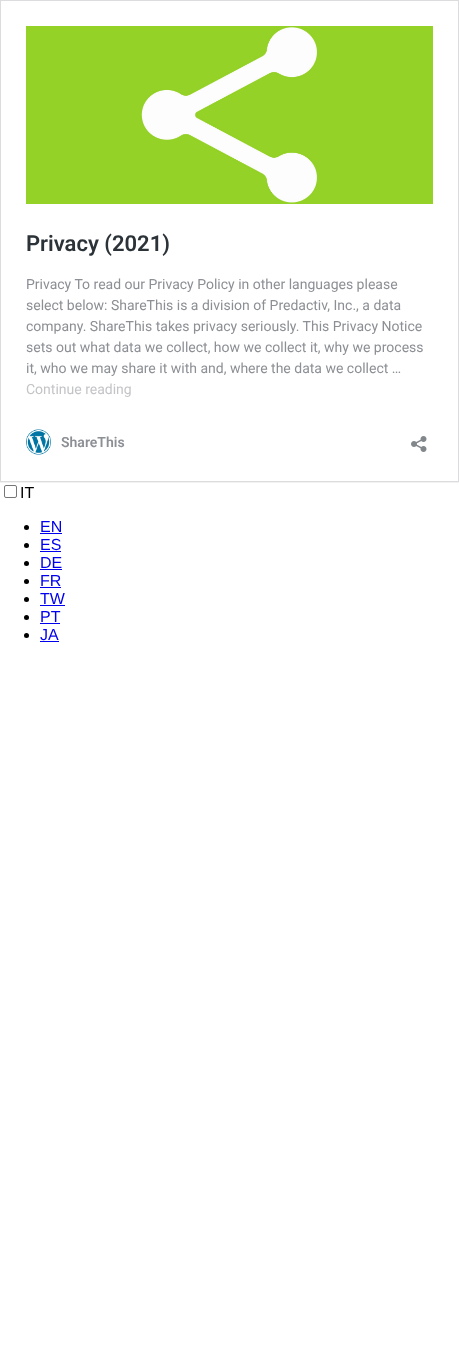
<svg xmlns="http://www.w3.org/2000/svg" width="459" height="1351">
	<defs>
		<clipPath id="clip1"><rect x="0" y="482" width="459" height="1" /></clipPath>
	</defs>
	<rect width="100%" height="100%" fill="#FFFFFF" />
	<rect x="4.5" y="485.5" width="12" height="12" rx="1.5" fill="none" stroke="#767676" />
	<g clip-path="url(#clip1)">
		<rect x="0" y="1" width="459" height="482" fill="#000000" fill-opacity="0.05" filter="blur(0.5px)" />
	</g>
	<rect x="0.5" y="0.5" width="458" height="481" fill="none" stroke="#DCDCDE" />
	<image x="26" y="26" width="407" height="178" href="assets/img1.png" />
	<text x="26" y="251" font-family="Roboto" font-size="22" font-weight="600" fill="#2C3338">Privacy (2021)</text>
	<g font-family="Roboto" font-size="14" fill="#8C8F94">
		<text x="26" y="289">Privacy To read our Privacy Policy in other languages please</text>
		<text x="26" y="310">select below: ShareThis is a division of Predactiv, Inc., a data</text>
		<text x="26" y="331">company. ShareThis takes privacy seriously. This Privacy Notice</text>
		<text x="26" y="352">sets out what data we collect, how we collect it, why we process</text>
		<text x="26" y="373">it, who we may share it with and, where the data we collect …</text>
	</g>
	<text x="26" y="394" font-family="Roboto" font-size="14" fill="#C3C4C7">Continue reading</text>
	<image x="26" y="429" width="25" height="26" href="assets/img2.png" />
	<text x="61" y="447" font-family="Roboto" font-size="14" font-weight="600" fill="#8C8F94">ShareThis</text>
	<image x="411" y="436" width="16" height="16" href="assets/img3.png" />
	<text x="20" y="498" font-family="Liberation Sans" font-size="16" fill="#000000">IT</text>
	<circle cx="26.5" cy="527.5" r="2.5" fill="#000000" />
	<text x="40" y="532" font-family="Liberation Sans" font-size="16" fill="#0000EE">EN</text>
	<rect x="40" y="533" width="22" height="1" fill="#0000EE" />
	<circle cx="26.5" cy="545.5" r="2.5" fill="#000000" />
	<text x="40" y="550" font-family="Liberation Sans" font-size="16" fill="#0000EE">ES</text>
	<rect x="40" y="551" width="21" height="1" fill="#0000EE" />
	<circle cx="26.5" cy="563.5" r="2.5" fill="#000000" />
	<text x="40" y="568" font-family="Liberation Sans" font-size="16" fill="#0000EE">DE</text>
	<rect x="40" y="569" width="22" height="1" fill="#0000EE" />
	<circle cx="26.5" cy="581.5" r="2.5" fill="#000000" />
	<text x="40" y="586" font-family="Liberation Sans" font-size="16" fill="#0000EE">FR</text>
	<rect x="40" y="587" width="21" height="1" fill="#0000EE" />
	<circle cx="26.5" cy="599.5" r="2.5" fill="#000000" />
	<text x="40" y="604" font-family="Liberation Sans" font-size="16" fill="#0000EE">TW</text>
	<rect x="40" y="605" width="25" height="1" fill="#0000EE" />
	<circle cx="26.5" cy="617.5" r="2.5" fill="#000000" />
	<text x="40" y="622" font-family="Liberation Sans" font-size="16" fill="#0000EE">PT</text>
	<rect x="40" y="623" width="20" height="1" fill="#0000EE" />
	<circle cx="26.5" cy="635.5" r="2.5" fill="#000000" />
	<text x="40" y="640" font-family="Liberation Sans" font-size="16" fill="#0000EE">JA</text>
	<rect x="40" y="641" width="19" height="1" fill="#0000EE" />
</svg>
